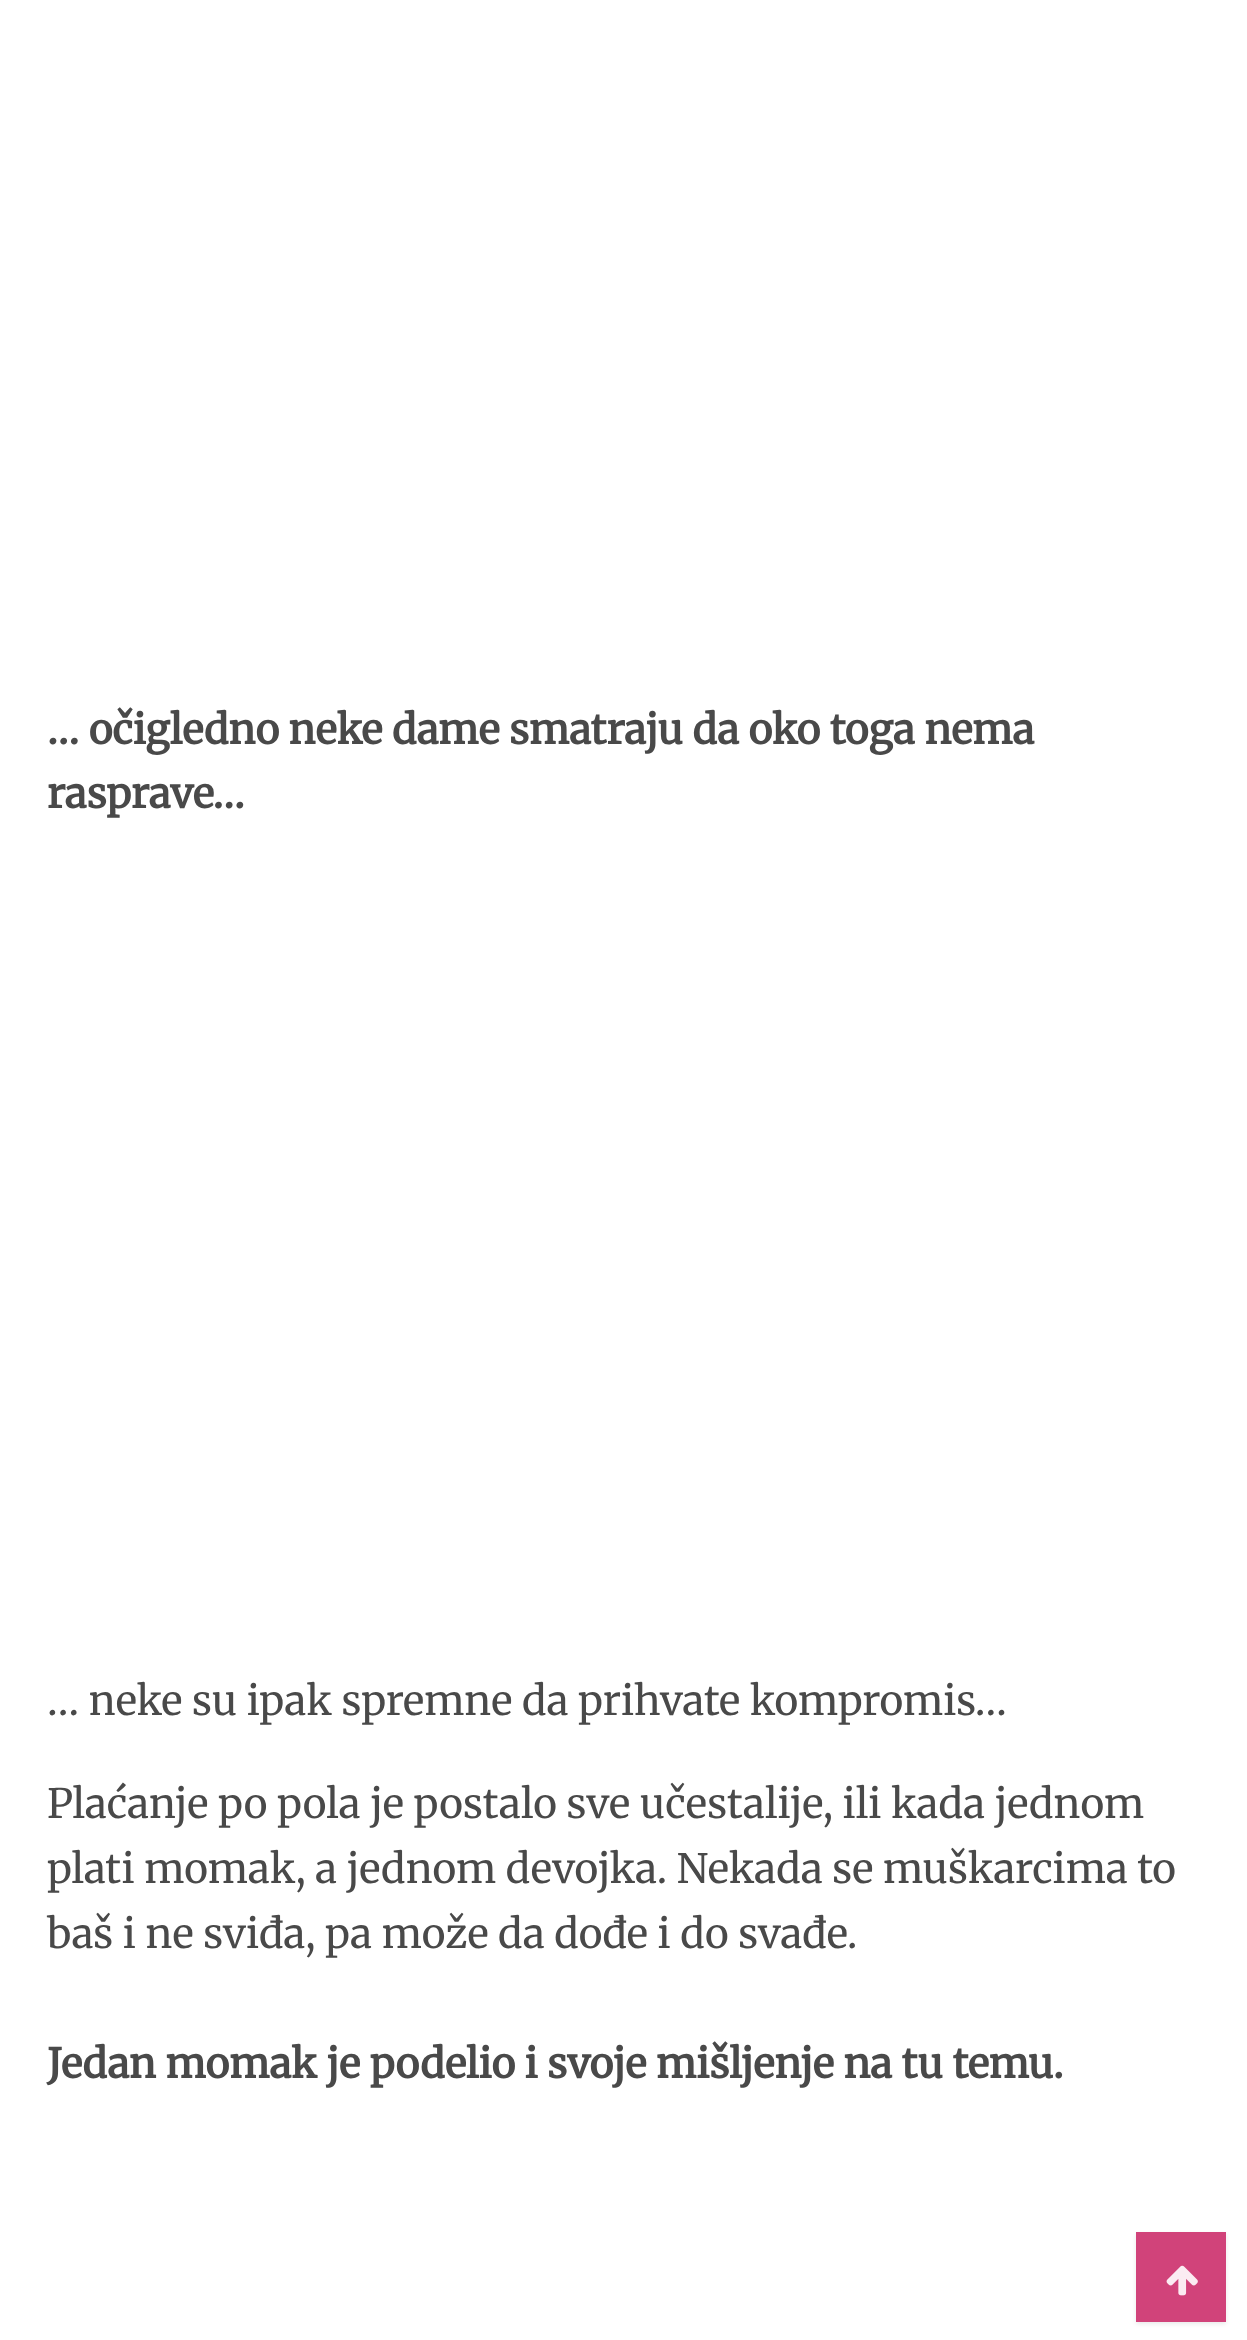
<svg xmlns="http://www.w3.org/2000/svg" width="1247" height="2340">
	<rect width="100%" height="100%" fill="#FFFFFF" />
	<g font-family="Merriweather" font-size="40.5" font-weight="700" fill="#494949">
		<text x="47" y="744">… očigledno neke dame smatraju da oko toga nema</text>
		<text x="47" y="808">rasprave…</text>
	</g>
	<g font-family="Merriweather" font-size="40.5" font-weight="300" fill="#494949">
		<text x="47" y="1715">… neke su ipak spremne da prihvate kompromis…</text>
		<text x="47" y="1818">Plaćanje po pola je postalo sve učestalije, ili kada jednom</text>
		<text x="47" y="1883">plati momak, a jednom devojka. Nekada se muškarcima to</text>
		<text x="47" y="1948">baš i ne sviđa, pa može da dođe i do svađe.</text>
	</g>
	<text x="47" y="2078" font-family="Merriweather" font-size="40.5" font-weight="700" fill="#494949">Jedan momak je podelio i svoje mišljenje na tu temu.</text>
	<rect x="1136" y="2234" width="90" height="90" fill="#1A1A1A" fill-opacity="0.09" filter="blur(2px)" />
	<rect x="1136" y="2232" width="90" height="90" fill="#D1437A" />
	<image x="1166" y="2265" width="32" height="31" href="assets/img1.png" />
</svg>
